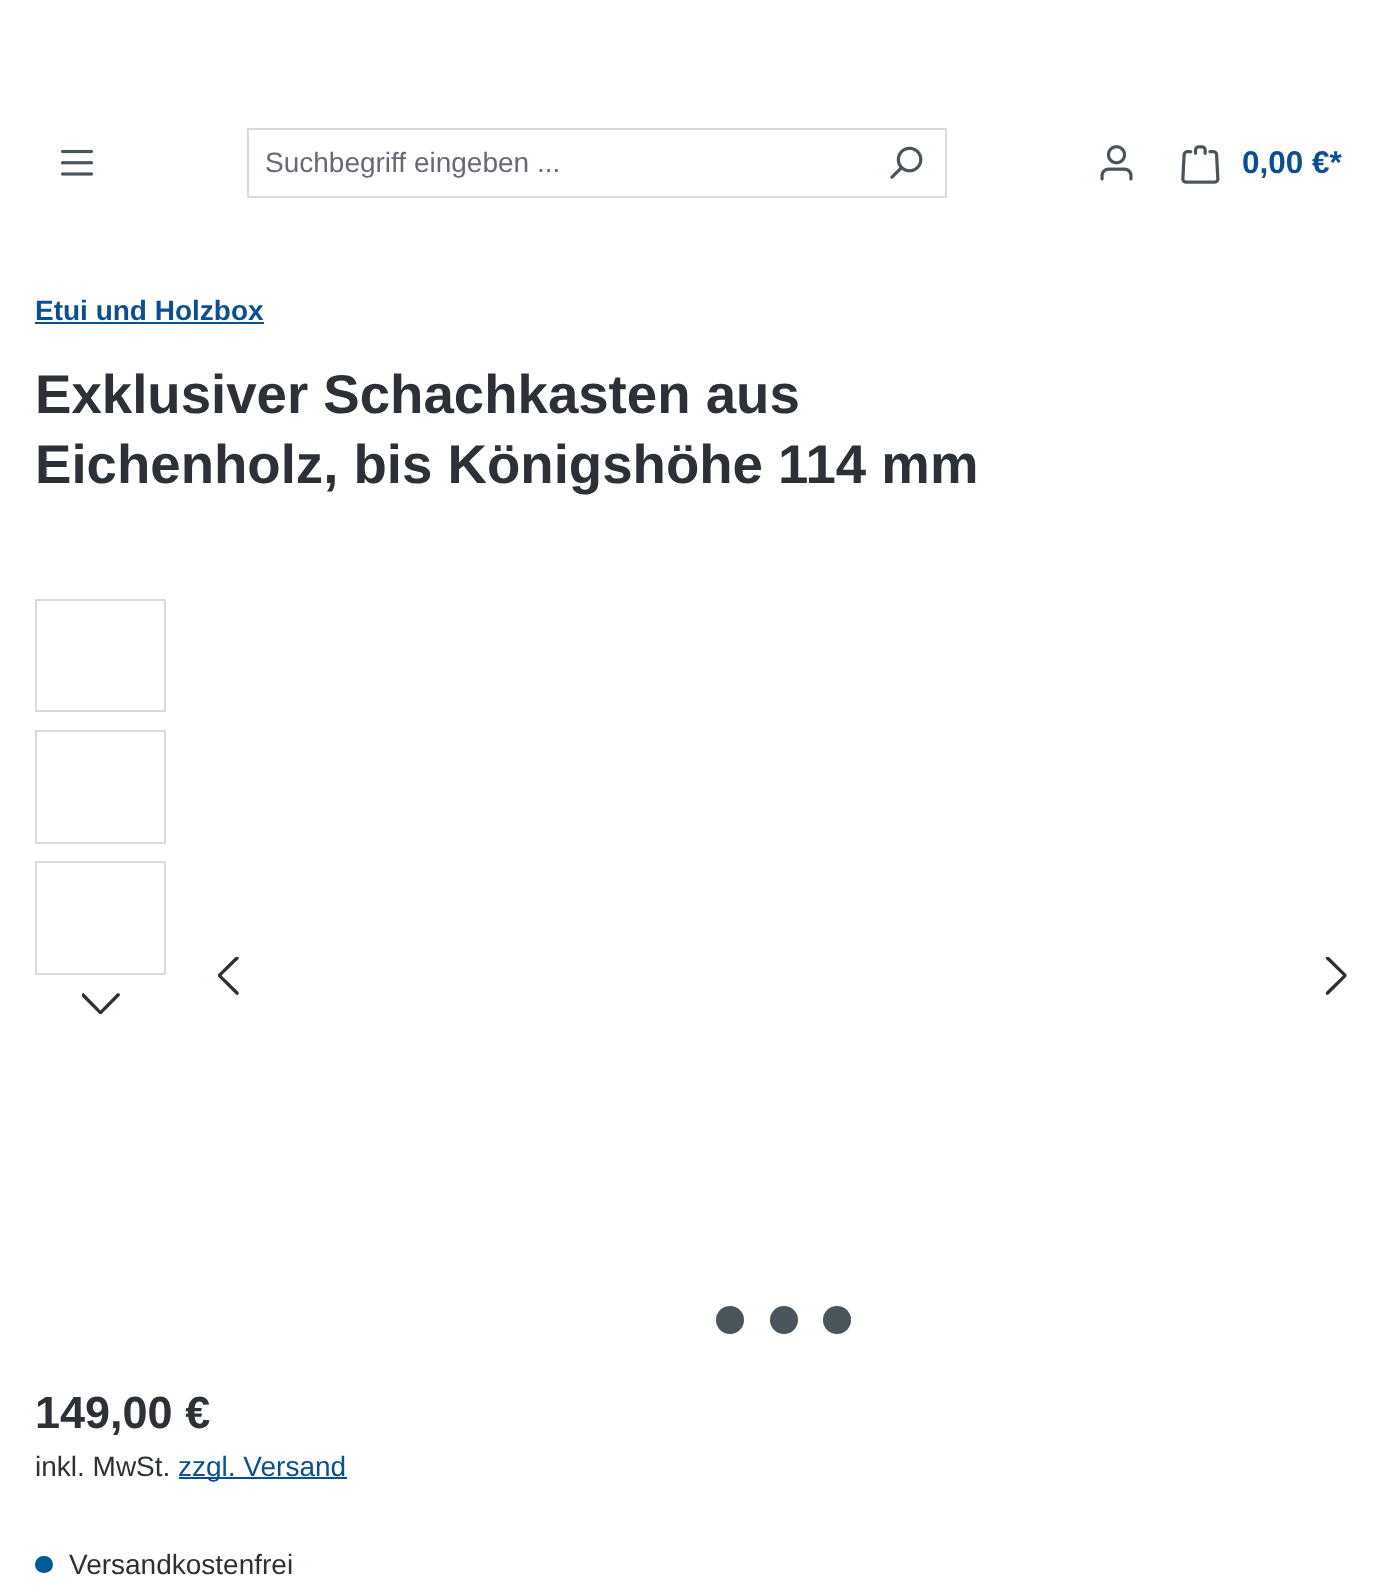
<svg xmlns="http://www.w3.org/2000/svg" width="1400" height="1591">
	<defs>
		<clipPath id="clip1"><rect x="82" y="985" width="39" height="39" /></clipPath>
		<clipPath id="clip2"><rect x="208" y="957" width="39" height="39" /></clipPath>
		<clipPath id="clip3"><rect x="1318" y="957" width="38" height="39" /></clipPath>
	</defs>
	<rect width="100%" height="100%" fill="#FFFFFF" />
	<image x="61" y="149" width="32" height="27" href="assets/img1.png" />
	<rect x="247" y="128" width="700" height="2" fill="#D8DBDC" />
	<rect x="247" y="196" width="619" height="2" fill="#D8DBDC" />
	<rect x="247" y="128" width="2" height="70" fill="#D8DBDC" />
	<text x="265" y="172" font-family="Liberation Sans" font-size="28" fill="#666977">Suchbegriff eingeben ...</text>
	<rect x="945" y="128" width="2" height="70" fill="#D8DBDC" />
	<rect x="865" y="196" width="82" height="2" fill="#D8DBDC" />
	<image x="890" y="146" width="33" height="33" href="assets/img2.png" />
	<image x="1100" y="145" width="33" height="36" href="assets/img3.png" />
	<image x="1181" y="145" width="39" height="39" href="assets/img4.png" />
	<text x="1242" y="173" font-family="Liberation Sans" font-size="31.5" font-weight="700" fill="#0B4F92">0,00 €*</text>
	<text x="35" y="320" font-family="Liberation Sans" font-size="28" font-weight="700" fill="#0B4F92">Etui und Holzbox</text>
	<rect x="35" y="322" width="229" height="2" fill="#0B4F92" />
	<g font-family="Liberation Sans" font-size="54.6" font-weight="700" fill="#2B3136">
		<text x="35" y="413">Exklusiver Schachkasten aus</text>
		<text x="35" y="483">Eichenholz, bis Königshöhe 114 mm</text>
	</g>
	<rect x="36" y="600" width="129" height="111" fill="none" stroke="#D8DBDC" stroke-width="2" />
	<rect x="36" y="731" width="129" height="112" fill="none" stroke="#D8DBDC" stroke-width="2" />
	<rect x="36" y="862" width="129" height="112" fill="none" stroke="#D8DBDC" stroke-width="2" />
	<g clip-path="url(#clip1)">
		<path d="M100.5 1010.5L117 993.5C118 993 119.5 993.5 120 994.5L119.5 996L101.5 1014H100.5H99.5L81.5 996V994.5C81.5 993.5 83 993 84 993.5Z" fill="#2B3136" fill-rule="evenodd" />
	</g>
	<g clip-path="url(#clip2)">
		<path d="M221.5 975.5L238.5 992C239 993 238.5 994.5 237.5 995L236 994.5L218 976.5V975.5V974.5L236 956.5H237.5C238.5 956.5 239 958 238.5 959Z" fill="#2B3136" fill-rule="evenodd" />
	</g>
	<g clip-path="url(#clip3)">
		<path d="M1343 975.5L1326 992C1325.5 993 1326 994.5 1327 995L1328.5 994.5L1346.5 976.5V975.5V974.5L1328.5 956.5H1327C1326 956.5 1325.5 958 1326 959Z" fill="#2B3136" fill-rule="evenodd" />
	</g>
	<circle cx="730" cy="1320" r="14" fill="#4A545B" />
	<circle cx="784" cy="1320" r="14" fill="#4A545B" />
	<circle cx="837" cy="1320" r="14" fill="#4A545B" />
	<text x="35" y="1428" font-family="Liberation Sans" font-size="45" font-weight="700" fill="#2B3136">149,00 €</text>
	<text x="35" y="1476" font-family="Liberation Sans" font-size="28" fill="#2B3136">inkl. MwSt.</text>
	<rect x="179" y="1477" width="168" height="2" fill="#0B4F92" />
	<text x="178" y="1476" font-family="Liberation Sans" font-size="28" fill="#0B4F92">zzgl. Versand</text>
	<rect x="35" y="1556" width="18" height="17" rx="8.5" fill="#005B99" />
	<text x="69" y="1574" font-family="Liberation Sans" font-size="28" fill="#2B3136">Versandkostenfrei</text>
</svg>
